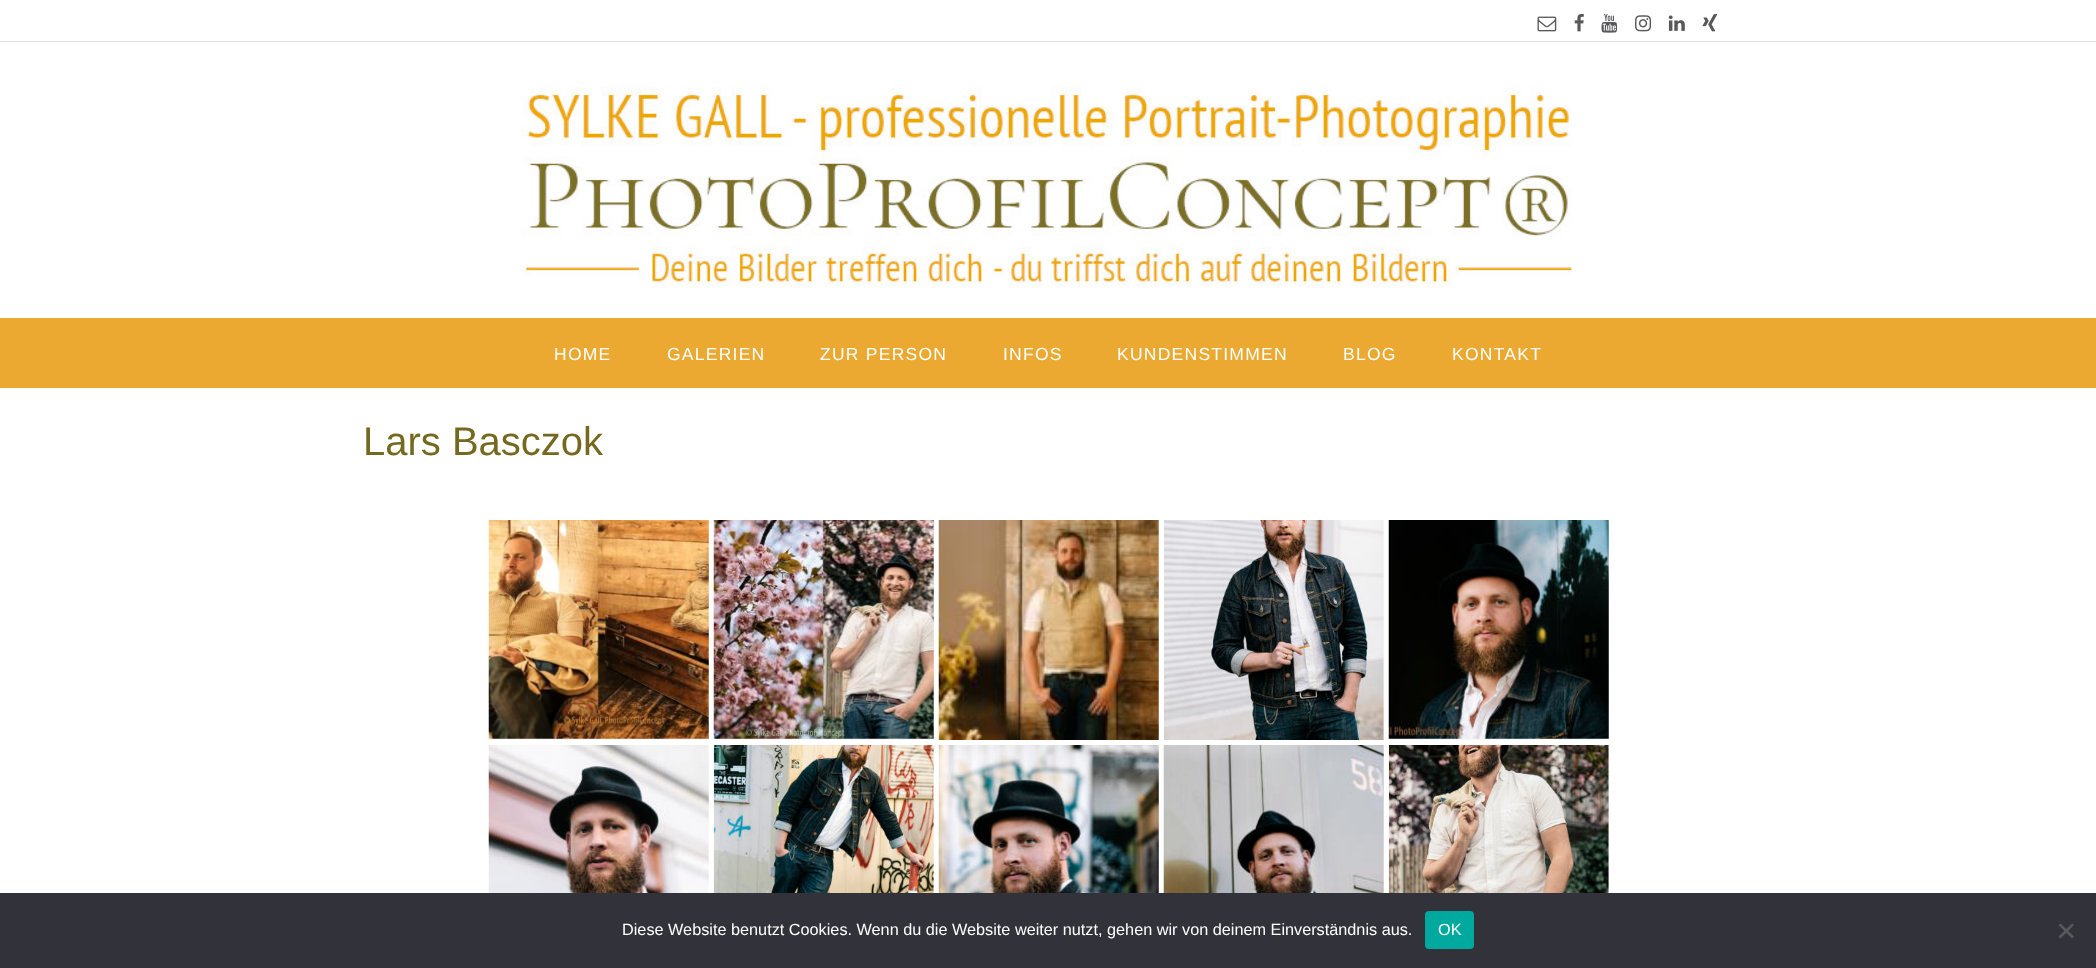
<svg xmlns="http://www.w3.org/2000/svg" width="2096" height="968">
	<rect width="100%" height="100%" fill="#FFFFFF" />
	<rect x="0" y="41" width="2096" height="1" fill="#E0E0E0" />
	<image x="1537" y="16" width="20" height="16" href="assets/img1.png" />
	<image x="1574" y="13" width="10" height="19" href="assets/img2.png" />
	<image x="1601" y="13" width="17" height="20" href="assets/img3.png" />
	<image x="1635" y="15" width="17" height="17" href="assets/img4.png" />
	<image x="1668" y="15" width="17" height="16" href="assets/img5.png" />
	<image x="1702" y="14" width="16" height="18" href="assets/img6.png" />
	<image x="521" y="86" width="1051" height="201" href="assets/img7.png" />
	<rect x="0" y="318" width="2096" height="70" fill="#ECA932" />
	<g font-family="Liberation Sans" font-size="17.5" letter-spacing="1.25" fill="#FFFFFF">
		<text x="554" y="360">HOME</text>
		<text x="667" y="360">GALERIEN</text>
		<text x="820" y="360">ZUR PERSON</text>
		<text x="1003" y="360">INFOS</text>
		<text x="1117" y="360">KUNDENSTIMMEN</text>
		<text x="1343" y="360">BLOG</text>
		<text x="1452" y="360">KONTAKT</text>
	</g>
	<text x="363" y="455" font-family="Liberation Sans" font-size="40" fill="#75681F">Lars Basczok</text>
	<rect x="489" y="520" width="220" height="220" fill="#F7F7F7" />
	<image x="488" y="520" width="221" height="219" href="assets/img8.png" />
	<rect x="714" y="520" width="220" height="220" fill="#F7F7F7" />
	<image x="713" y="520" width="221" height="219" href="assets/img9.png" />
	<image x="938" y="520" width="221" height="220" href="assets/img10.png" />
	<rect x="1383" y="520" width="1" height="220" fill="#F7F7F7" />
	<image x="1164" y="520" width="220" height="220" href="assets/img11.png" />
	<rect x="1389" y="520" width="220" height="220" fill="#F7F7F7" />
	<image x="1388" y="520" width="221" height="219" href="assets/img12.png" />
	<image x="488" y="745" width="221" height="148" href="assets/img13.png" />
	<rect x="933" y="745" width="1" height="148" fill="#F7F7F7" />
	<image x="713" y="745" width="221" height="148" href="assets/img14.png" />
	<image x="938" y="745" width="221" height="148" href="assets/img15.png" />
	<image x="1163" y="745" width="221" height="148" href="assets/img16.png" />
	<rect x="1608" y="745" width="1" height="148" fill="#F7F7F7" />
	<image x="1388" y="745" width="221" height="148" href="assets/img17.png" />
	<rect x="0" y="893" width="2096" height="75" fill="#32323A" />
	<text x="622" y="935" font-family="Liberation Sans" font-size="16.25" fill="#FFFFFF">Diese Website benutzt Cookies. Wenn du die Website weiter nutzt, gehen wir von deinem Einverständnis aus.</text>
	<rect x="1425" y="911" width="49" height="38" rx="4" fill="#00A99D" />
	<text x="1438" y="935" font-family="Liberation Sans" font-size="16.25" fill="#FFFFFF">OK</text>
	<path d="M2072 923.5L2074 925L2060.5 938.5L2058.5 936.5Z" fill="#59595D" />
	<path d="M2058.5 925L2060.5 923.5L2074 936.5L2072 938.5Z" fill="#59595D" />
</svg>
